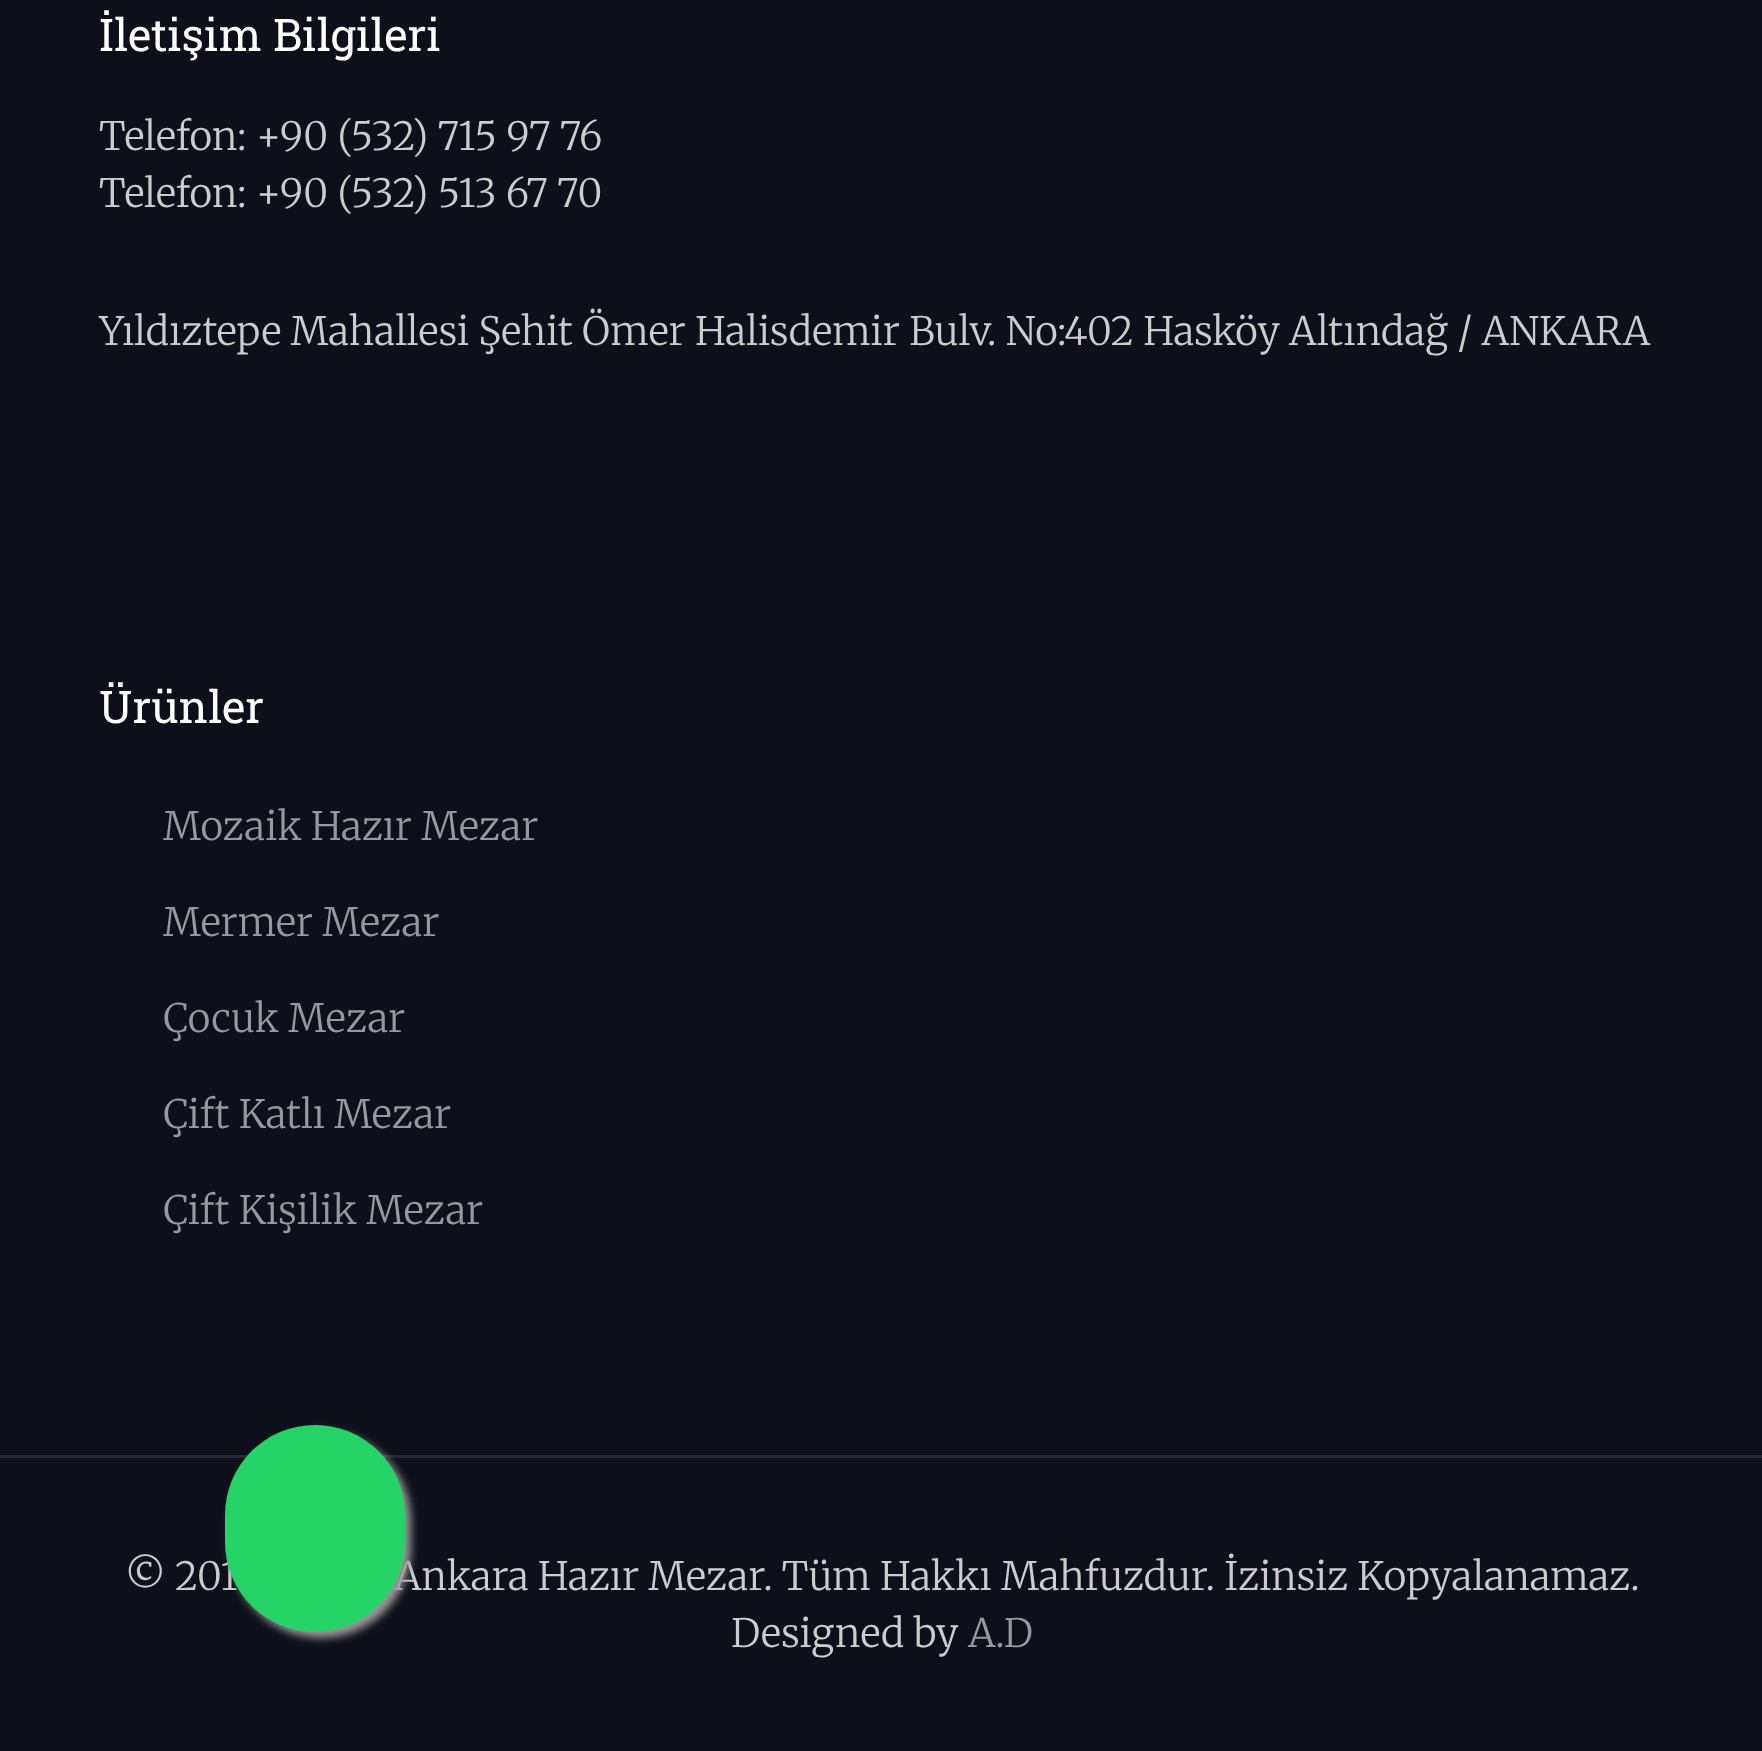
<svg xmlns="http://www.w3.org/2000/svg" width="1762" height="1751">
	<rect width="100%" height="100%" fill="#0D0F19" />
	<text x="99" y="51" font-family="Roboto Slab" font-size="45" fill="#FFFFFF">İletişim Bilgileri</text>
	<g font-family="Merriweather" font-size="39" font-weight="300" fill="#CCCCCC">
		<text x="99" y="150">Telefon: +90 (532) 715 97 76</text>
		<text x="99" y="207">Telefon: +90 (532) 513 67 70</text>
		<text x="99" y="345">Yıldıztepe Mahallesi Şehit Ömer Halisdemir Bulv. No:402 Hasköy Altındağ / ANKARA</text>
	</g>
	<text x="99" y="723" font-family="Roboto Slab" font-size="45" fill="#FFFFFF">Ürünler</text>
	<g font-family="Merriweather" font-size="39" font-weight="300" fill="#97989D">
		<text x="163" y="840">Mozaik Hazır Mezar</text>
		<text x="163" y="936">Mermer Mezar</text>
		<text x="163" y="1032">Çocuk Mezar</text>
		<text x="163" y="1128">Çift Katlı Mezar</text>
		<text x="163" y="1224">Çift Kişilik Mezar</text>
	</g>
	<rect x="0" y="1455" width="1762" height="3" fill="#252730" />
	<g font-family="Merriweather" font-size="39" font-weight="300" fill="#CCCCCC">
		<text x="125" y="1590">© 201</text>
		<text x="394" y="1590">Ankara Hazır Mezar. Tüm Hakkı Mahfuzdur. İzinsiz Kopyalanamaz.</text>
		<text x="731" y="1647">Designed by</text>
	</g>
	<text x="968" y="1647" font-family="Merriweather" font-size="39" font-weight="300" fill="#97989D">A.D</text>
	<rect x="231" y="1431" width="180" height="207" rx="90" fill="#999999" filter="blur(4.5px)" />
	<rect x="225" y="1425" width="180" height="207" rx="90" fill="#25D366" />
</svg>
